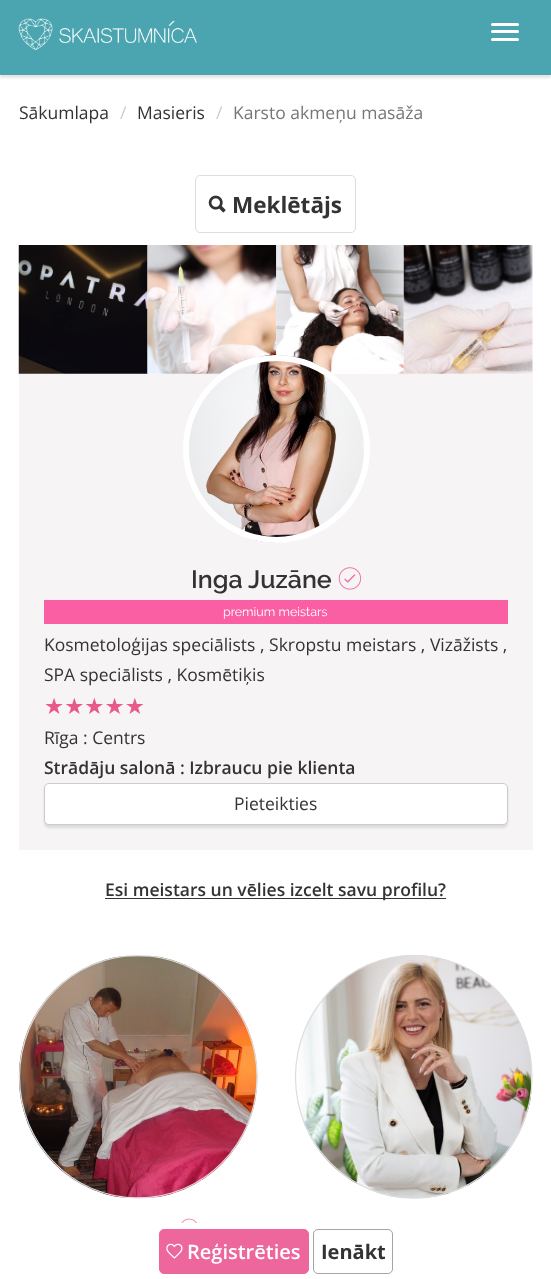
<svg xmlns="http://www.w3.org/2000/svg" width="551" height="1279">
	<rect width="100%" height="100%" fill="#FFFFFF" />
	<rect x="0" y="3" width="551" height="75" fill="#000000" fill-opacity="0.1" filter="blur(1px)" />
	<rect x="0" y="0" width="551" height="75" fill="#4BA5B0" />
	<image x="18" y="18" width="179" height="32" href="assets/img1.png" />
	<rect x="491" y="23" width="28" height="3" rx="1.5" fill="#FFFFFF" />
	<rect x="491" y="30" width="28" height="3" rx="1.5" fill="#FFFFFF" />
	<rect x="491" y="38" width="28" height="3" rx="1.5" fill="#FFFFFF" />
	<text x="19" y="119" font-family="Open Sans" font-size="17.5" fill="#333333">Sākumlapa</text>
	<text x="120" y="119" font-family="Open Sans" font-size="17.5" fill="#CCCCCC">/</text>
	<text x="137" y="119" font-family="Open Sans" font-size="17.5" fill="#333333">Masieris</text>
	<text x="216" y="119" font-family="Open Sans" font-size="17.5" fill="#CCCCCC">/</text>
	<text x="233" y="119" font-family="Open Sans" font-size="17.5" fill="#777777">Karsto akmeņu masāža</text>
	<rect x="195.5" y="175.5" width="160" height="57" rx="4.5" fill="none" stroke="#DDDDDD" />
	<image x="208" y="195" width="18" height="18" href="assets/img2.png" />
	<text x="232" y="213" font-family="Open Sans" font-size="22.5" font-weight="700" fill="#333333">Meklētājs</text>
	<image x="18" y="245" width="130" height="129" href="assets/img3.png" />
	<image x="147" y="245" width="130" height="129" href="assets/img4.png" />
	<image x="276" y="245" width="128" height="129" href="assets/img5.png" />
	<image x="403" y="245" width="130" height="129" href="assets/img6.png" />
	<rect x="19" y="374" width="514" height="476" fill="#F6F4F4" />
	<image x="189" y="355" width="175" height="188" href="assets/img7.png" />
	<rect x="186" y="358" width="181" height="182" rx="90.5" fill="none" stroke="#FFFFFF" stroke-width="6" />
	<text x="191" y="588" font-family="Raleway" font-size="25" font-weight="600" fill="#333333">Inga Juzāne</text>
	<image x="338" y="567" width="24" height="23" href="assets/img8.png" />
	<rect x="44" y="600" width="464" height="24" fill="#FA5FA3" />
	<text x="223" y="616" font-family="Raleway" font-size="12.5" fill="#FFFFFF">premium meistars</text>
	<g font-family="Open Sans" font-size="17.5" fill="#333333">
		<text x="44" y="651">Kosmetoloģijas speciālists , Skropstu meistars , Vizāžists ,</text>
		<text x="44" y="681">SPA speciālists , Kosmētiķis</text>
	</g>
	<text x="44" y="714" font-family="DejaVu Sans" font-size="22.5" fill="#E8598C">★★★★★</text>
	<text x="44" y="744" font-family="Open Sans" font-size="17.5" fill="#333333">Rīga : Centrs</text>
	<text x="44" y="774" font-family="Open Sans" font-size="17.5" font-weight="600" fill="#333333">Strādāju salonā : Izbraucu pie klienta</text>
	<rect x="44" y="785" width="464" height="43" rx="5" fill="#030404" fill-opacity="0.1" filter="blur(1px)" />
	<rect x="44.5" y="783.5" width="463" height="41" rx="4.5" fill="#FFFFFF" stroke="#CCCCCC" />
	<text x="234" y="810" font-family="Open Sans" font-size="17.5" fill="#333333">Pieteikties</text>
	<rect x="105" y="898" width="341" height="1" fill="#333333" />
	<text x="105" y="896" font-family="Open Sans" font-size="17.5" font-weight="600" fill="#333333">Esi meistars un vēlies izcelt savu profilu?</text>
	<image x="18" y="956" width="240" height="242" href="assets/img9.png" />
	<path d="M138 955.5C203.5 955.5 257 1010 257 1077C257 1144 203.5 1198 138 1198C72.5 1198 19.5 1144 19.5 1077C19.5 1010 72.5 955.5 138 955.5Z" fill="none" stroke="#DDDDDD" stroke-width="1.2" />
	<image x="181" y="1218" width="16" height="5" href="assets/img10.png" />
	<image x="298" y="955" width="234" height="244" href="assets/img11.png" />
	<path d="M414 955.5C479 955.5 532 1010 532 1077C532 1144 479 1198 414 1198C348.5 1198 295.5 1144 295.5 1077C295.5 1010 348.5 955.5 414 955.5Z" fill="none" stroke="#DDDDDD" stroke-width="1.2" />
	<rect x="159.5" y="1229.5" width="149" height="44" rx="4.5" fill="#ED679C" stroke="#ED679C" />
	<image x="166" y="1243" width="17" height="16" href="assets/img12.png" />
	<text x="187" y="1259" font-family="Open Sans" font-size="20" font-weight="600" fill="#FFFFFF">Reģistrēties</text>
	<rect x="313.5" y="1229.5" width="79" height="44" rx="4.5" fill="none" stroke="#A5A4A4" />
	<text x="321" y="1259" font-family="Open Sans" font-size="20" font-weight="700" fill="#333333">Ienākt</text>
</svg>
